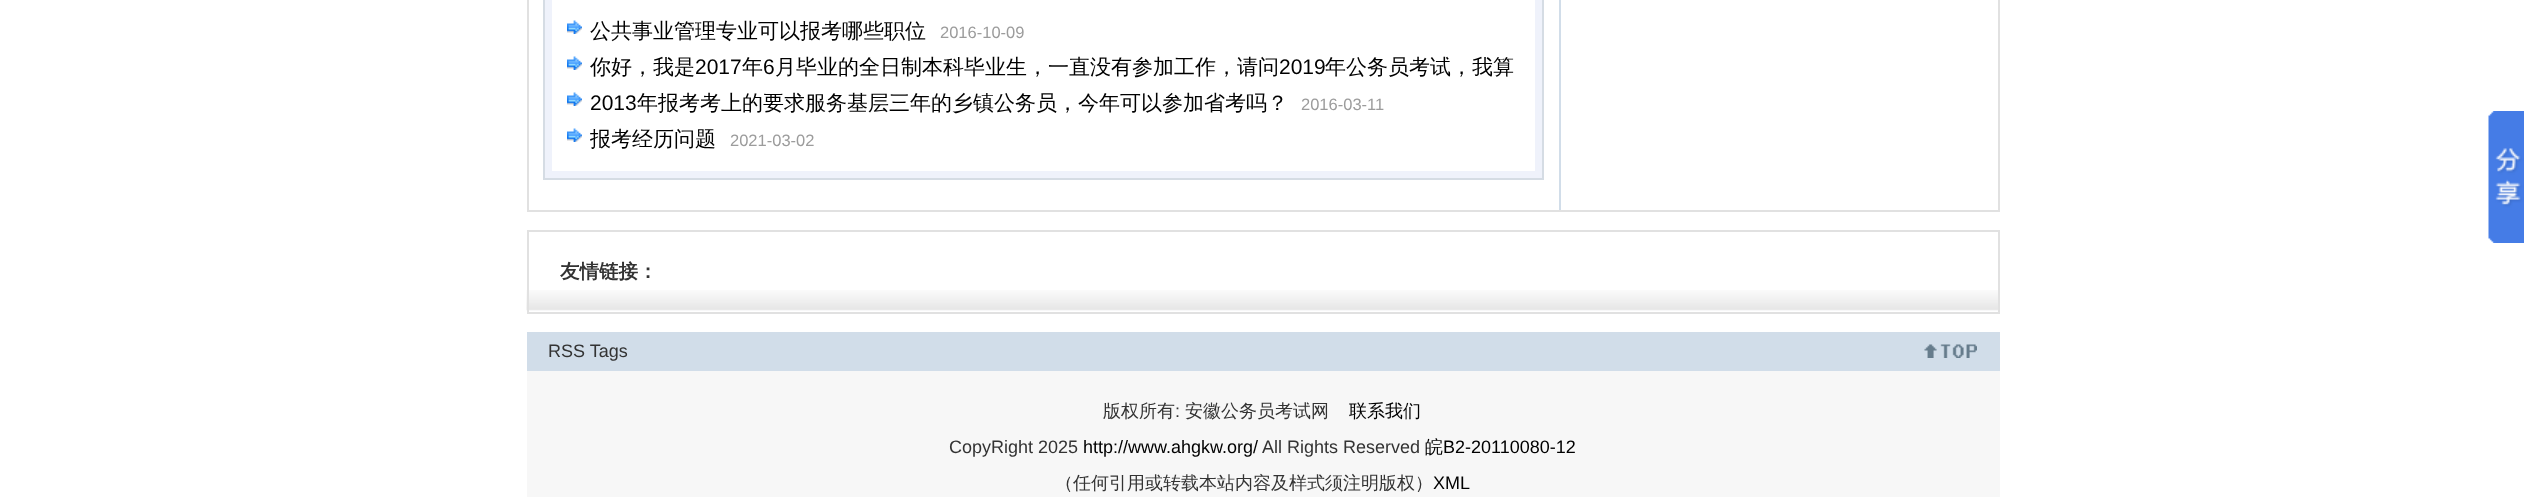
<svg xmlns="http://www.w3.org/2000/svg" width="2524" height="497">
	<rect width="100%" height="100%" fill="#FFFFFF" />
	<rect x="528" y="-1" width="1471" height="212" fill="none" stroke="#E1E1E1" stroke-width="2" />
	<rect x="1559" y="0" width="2" height="210" fill="#D1DDE9" />
	<rect x="544" y="-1" width="999" height="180" fill="#EFF2FB" stroke="#D5DCE4" stroke-width="2" />
	<rect x="552" y="0" width="983" height="171" fill="#FFFFFF" />
	<image x="567" y="20" width="15" height="14" href="assets/img1.png" />
	<text x="590" y="38" font-family="WenQuanYi Zen Hei" font-size="21" font-weight="500" fill="#000000">公共事业管理专业可以报考哪些职位</text>
	<text x="940" y="38" font-family="Liberation Sans" font-size="16.5" fill="#9C9C9C">2016-10-09</text>
	<image x="567" y="56" width="15" height="14" href="assets/img1.png" />
	<text x="590" y="74" font-family="WenQuanYi Zen Hei" font-size="21" font-weight="500" fill="#000000">你好，我是</text>
	<text x="695" y="74" font-family="Liberation Sans" font-size="21" fill="#000000">2017</text>
	<text x="742" y="74" font-family="WenQuanYi Zen Hei" font-size="21" font-weight="500" fill="#000000">年</text>
	<text x="763" y="74" font-family="Liberation Sans" font-size="21" fill="#000000">6</text>
	<text x="775" y="74" font-family="WenQuanYi Zen Hei" font-size="21" font-weight="500" fill="#000000">月毕业的全日制本科毕业生，一直没有参加工作，请问</text>
	<text x="1279" y="74" font-family="Liberation Sans" font-size="21" fill="#000000">2019</text>
	<text x="1325" y="74" font-family="WenQuanYi Zen Hei" font-size="21" font-weight="500" fill="#000000">年公务员考试，我算</text>
	<image x="567" y="92" width="15" height="14" href="assets/img1.png" />
	<text x="590" y="110" font-family="Liberation Sans" font-size="21" fill="#000000">2013</text>
	<text x="637" y="110" font-family="WenQuanYi Zen Hei" font-size="21" font-weight="500" fill="#000000">年报考考上的要求服务基层三年的乡镇公务员，今年可以参加省考吗？</text>
	<text x="1301" y="110" font-family="Liberation Sans" font-size="16.5" fill="#9C9C9C">2016-03-11</text>
	<image x="567" y="128" width="15" height="14" href="assets/img1.png" />
	<text x="590" y="146" font-family="WenQuanYi Zen Hei" font-size="21" font-weight="500" fill="#000000">报考经历问题</text>
	<text x="730" y="146" font-family="Liberation Sans" font-size="16.5" fill="#9C9C9C">2021-03-02</text>
	<image x="2488" y="111" width="36" height="132" href="assets/img2.png" />
	<image x="526" y="290" width="1472" height="21" href="assets/img3.png" />
	<rect x="528" y="231" width="1471" height="82" fill="none" stroke="#E1E1E1" stroke-width="2" />
	<text x="560" y="278" font-family="WenQuanYi Zen Hei" font-size="19.5" font-weight="700" fill="#333333">友情链接：</text>
	<rect x="527" y="332" width="1473" height="39" fill="#D1DDE9" />
	<text x="548" y="357" font-family="Liberation Sans" font-size="18" fill="#333333">RSS Tags</text>
	<image x="1924" y="344" width="53" height="14" href="assets/img4.png" />
	<rect x="527" y="371" width="1473" height="126" fill="#F7F7F7" />
	<text x="1103" y="417" font-family="WenQuanYi Zen Hei" font-size="18" font-weight="500" fill="#333333">版权所有</text>
	<text x="1175" y="417" font-family="Liberation Sans" font-size="18" fill="#333333">:</text>
	<text x="1185" y="417" font-family="WenQuanYi Zen Hei" font-size="18" font-weight="500" fill="#333333">安徽公务员考试网</text>
	<text x="1349" y="417" font-family="WenQuanYi Zen Hei" font-size="18" font-weight="500" fill="#000000">联系我们</text>
	<text x="949" y="453" font-family="Liberation Sans" font-size="18" fill="#333333">CopyRight 2025</text>
	<text x="1083" y="453" font-family="Liberation Sans" font-size="18" fill="#000000">http://www.ahgkw.org/</text>
	<text x="1262" y="453" font-family="Liberation Sans" font-size="18" fill="#333333">All Rights Reserved</text>
	<text x="1425" y="453" font-family="WenQuanYi Zen Hei" font-size="18" font-weight="500" fill="#000000">皖</text>
	<text x="1443" y="453" font-family="Liberation Sans" font-size="18" fill="#000000">B2-20110080-12</text>
	<text x="1055" y="489" font-family="WenQuanYi Zen Hei" font-size="18" font-weight="500" fill="#333333">（任何引用或转载本站内容及样式须注明版权）</text>
	<text x="1433" y="489" font-family="Liberation Sans" font-size="18" fill="#000000">XML</text>
</svg>
